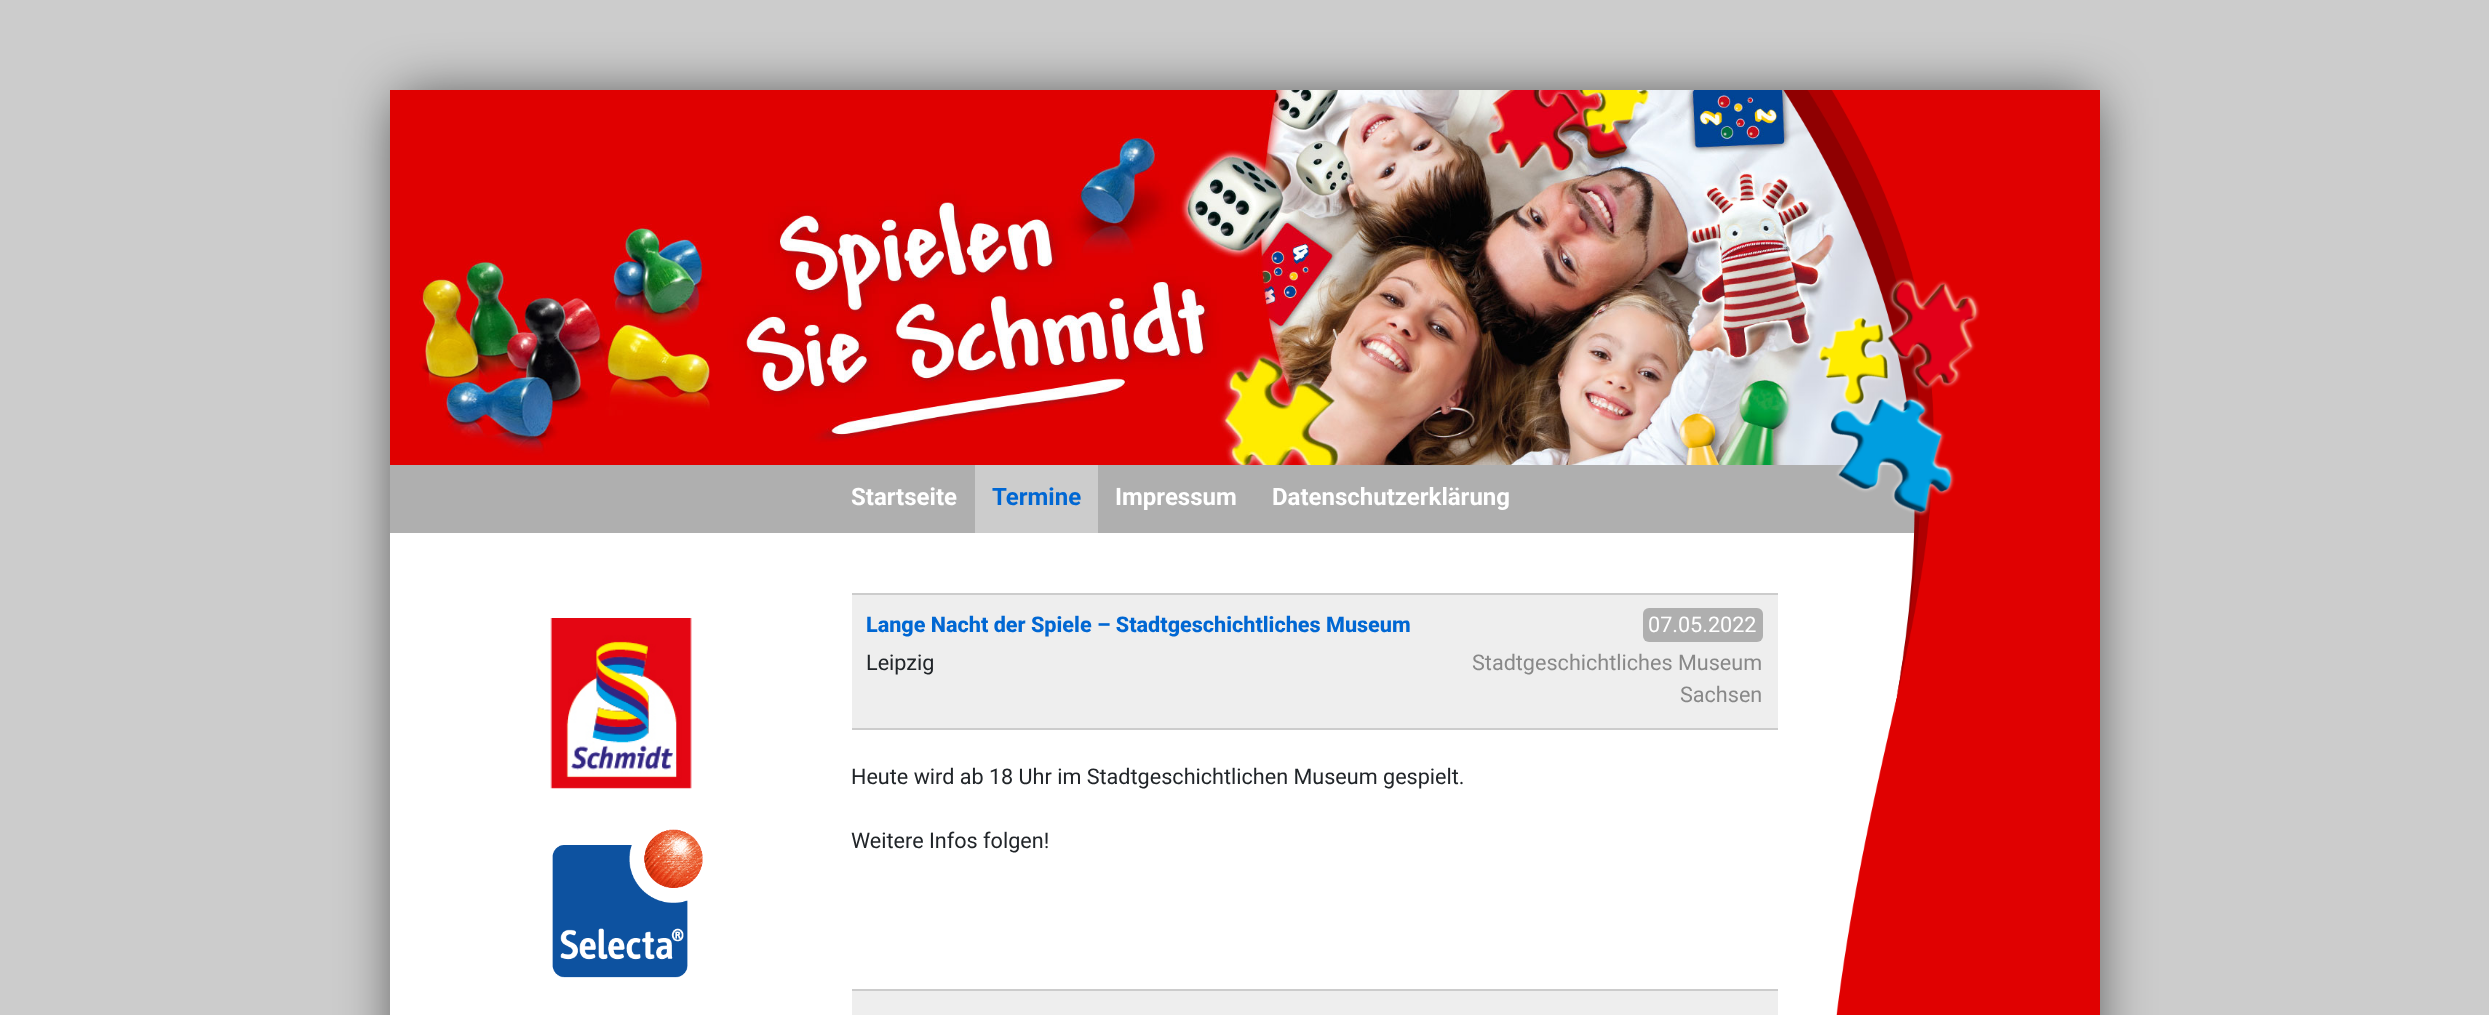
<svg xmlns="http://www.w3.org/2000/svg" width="2489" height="1015">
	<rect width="100%" height="100%" fill="#CCCCCC" />
	<rect x="398" y="98" width="1695" height="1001" fill="#000000" fill-opacity="0.66" filter="blur(28px)" />
	<rect x="390" y="533" width="1525" height="482" fill="#FFFFFF" />
	<image x="390" y="90" width="1518" height="375" href="assets/img1.png" />
	<rect x="390" y="465" width="1525" height="68" fill="#AFAFAF" />
	<text x="851" y="505" font-family="Roboto" font-size="24" font-weight="700" fill="#FFFFFF">Startseite</text>
	<rect x="975" y="465" width="123" height="68" fill="#CCCCCC" />
	<text x="992" y="505" font-family="Roboto" font-size="24" font-weight="700" fill="#0067D3">Termine</text>
	<g font-family="Roboto" font-size="24" font-weight="700" fill="#FFFFFF">
		<text x="1115" y="505">Impressum</text>
		<text x="1272" y="505">Datenschutzerklärung</text>
	</g>
	<image x="1783" y="90" width="317" height="925" href="assets/img2.png" />
	<image x="1816" y="278" width="164" height="238" href="assets/img3.png" />
	<image x="550" y="618" width="142" height="171" href="assets/img4.png" />
	<image x="552" y="829" width="151" height="149" href="assets/img5.png" />
	<rect x="852" y="595" width="926" height="133" fill="#EEEEEE" />
	<rect x="852" y="728" width="926" height="2" fill="#CCCCCC" />
	<rect x="852" y="593" width="926" height="2" fill="#CCCCCC" />
	<text x="866" y="632" font-family="Roboto" font-size="21.6" font-weight="800" fill="#0067D3">Lange Nacht der Spiele – Stadtgeschichtliches Museum</text>
	<rect x="1643" y="608" width="120" height="34" rx="6" fill="#AFAFAF" />
	<text x="1648" y="632" font-family="Roboto" font-size="21.6" fill="#FFFFFF">07.05.2022</text>
	<text x="866" y="670" font-family="Roboto" font-size="21.6" fill="#212529">Leipzig</text>
	<g font-family="Roboto" font-size="21.6" fill="#888888">
		<text x="1472" y="670">Stadtgeschichtliches Museum</text>
		<text x="1680" y="702">Sachsen</text>
	</g>
	<g font-family="Roboto" font-size="21.6" fill="#212529">
		<text x="851" y="784">Heute wird ab 18 Uhr im Stadtgeschichtlichen Museum gespielt.</text>
		<text x="851" y="848">Weitere Infos folgen!</text>
	</g>
	<rect x="852" y="991" width="926" height="24" fill="#EEEEEE" />
	<rect x="852" y="989" width="926" height="2" fill="#CCCCCC" />
</svg>
